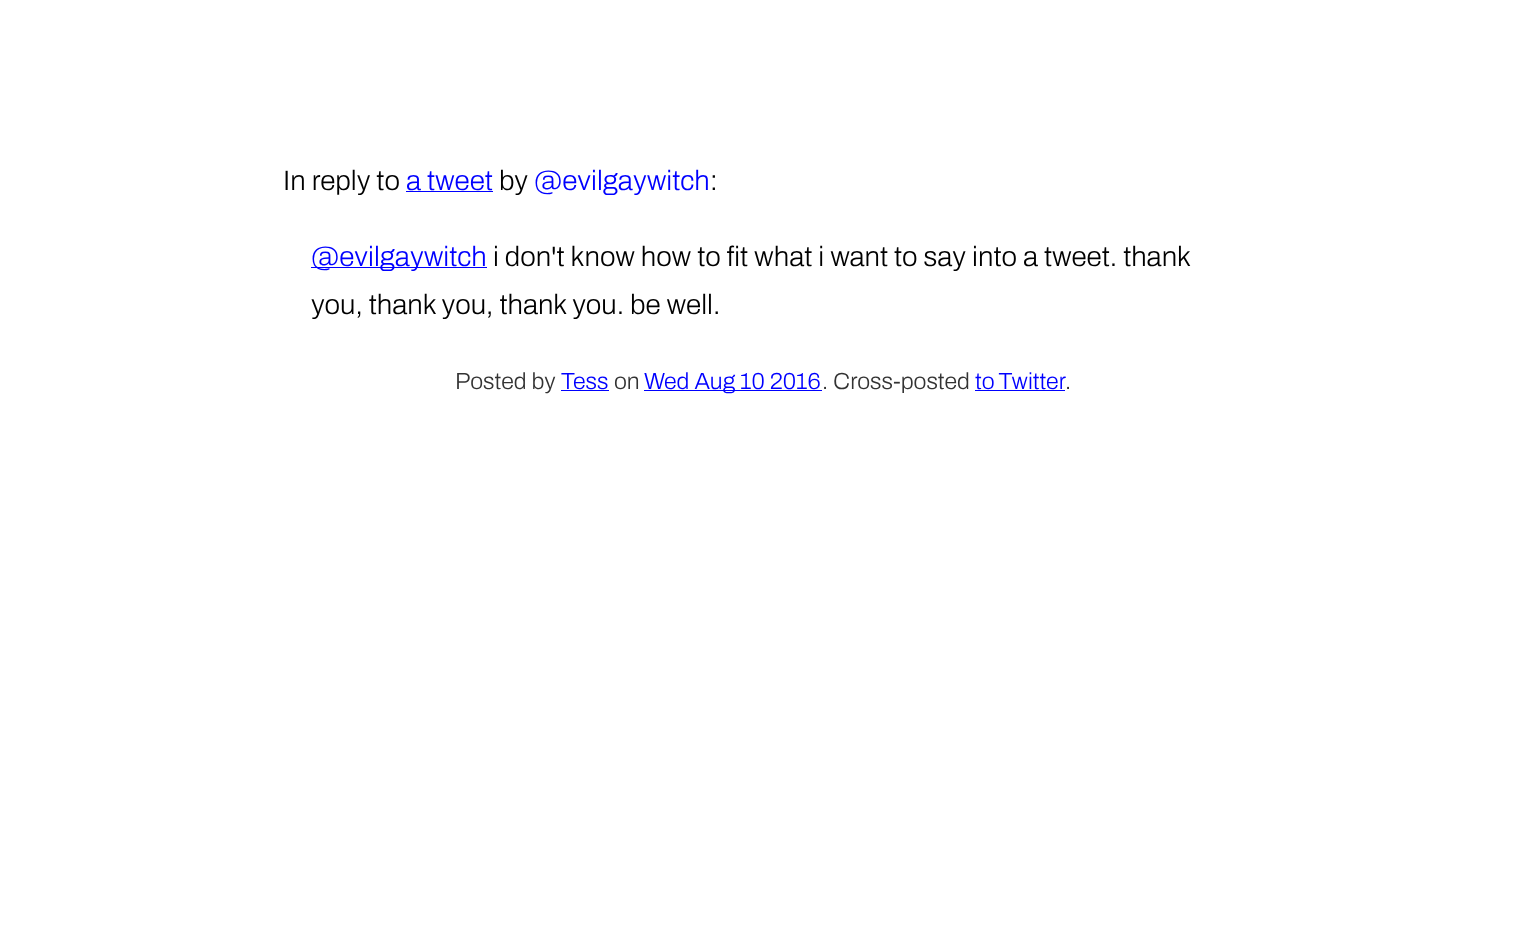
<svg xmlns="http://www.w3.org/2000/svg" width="1526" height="935">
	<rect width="100%" height="100%" fill="#FFFFFF" />
	<text x="283" y="190" font-family="Archivo" font-size="28" font-weight="300" fill="#000000">In reply to</text>
	<text x="406" y="190" font-family="Archivo" font-size="28" font-weight="300" fill="#0000FF">a tweet</text>
	<rect x="406" y="191" width="87" height="1" fill="#0000FF" />
	<text x="499" y="190" font-family="Archivo" font-size="28" font-weight="300" fill="#000000">by</text>
	<text x="534" y="190" font-family="Archivo" font-size="28" font-weight="300" fill="#0000FF">@evilgaywitch</text>
	<text x="710" y="190" font-family="Archivo" font-size="28" font-weight="300" fill="#000000">:</text>
	<rect x="311" y="267" width="176" height="1" fill="#0000FF" />
	<text x="311" y="266" font-family="Archivo" font-size="28" font-weight="300" fill="#0000FF">@evilgaywitch</text>
	<g font-family="Archivo" font-size="28" font-weight="300" fill="#000000">
		<text x="493" y="266">i don't know how to fit what i want to say into a tweet. thank</text>
		<text x="311" y="314">you, thank you, thank you. be well.</text>
	</g>
	<text x="455" y="389" font-family="Archivo" font-size="23.25" font-weight="300" fill="#333333">Posted by</text>
	<text x="561" y="389" font-family="Archivo" font-size="23.25" font-weight="300" fill="#0000FF">Tess</text>
	<rect x="561" y="390" width="48" height="1" fill="#0000FF" />
	<text x="614" y="389" font-family="Archivo" font-size="23.25" font-weight="300" fill="#333333">on</text>
	<rect x="644" y="390" width="178" height="1" fill="#0000FF" />
	<text x="644" y="389" font-family="Archivo" font-size="23.25" font-weight="300" fill="#0000FF">Wed Aug 10 2016</text>
	<text x="822" y="389" font-family="Archivo" font-size="23.25" font-weight="300" fill="#333333">. Cross-posted</text>
	<text x="975" y="389" word-spacing="-1" font-family="Archivo" font-size="23.25" font-weight="300" fill="#0000FF">to Twitter</text>
	<text x="1065" y="389" font-family="Archivo" font-size="23.25" font-weight="300" fill="#333333">.</text>
	<rect x="975" y="390" width="90" height="1" fill="#0000FF" />
</svg>
